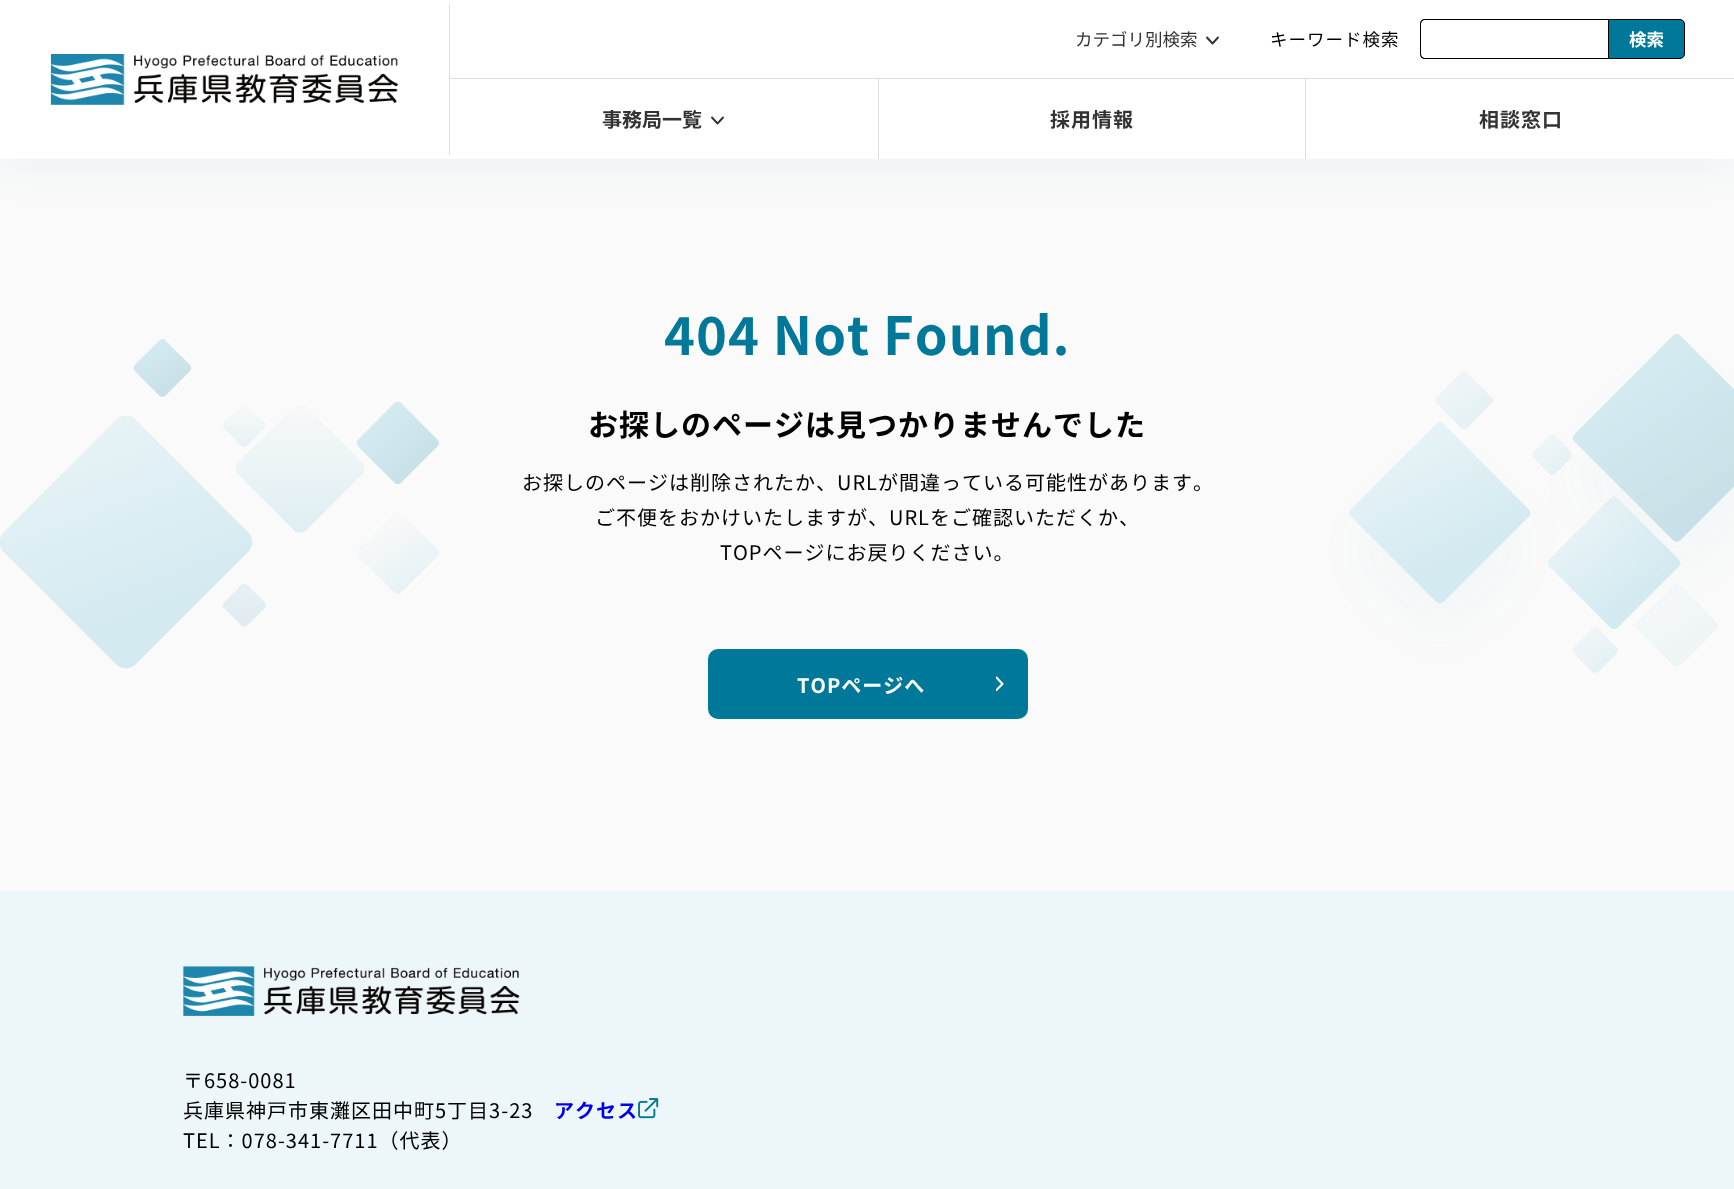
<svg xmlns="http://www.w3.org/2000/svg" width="1734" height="1189">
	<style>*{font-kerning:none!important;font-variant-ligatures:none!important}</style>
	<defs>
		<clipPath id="clip1"><path d="M1004.5 676V691H996V676Z" /></clipPath>
	</defs>
	<rect width="100%" height="100%" fill="#FAFAFA" />
	<rect x="0" y="13" width="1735" height="158" fill="#007899" fill-opacity="0.05" filter="blur(19px)" />
	<rect x="0" y="0" width="1734" height="159" fill="#FFFFFF" />
	<rect x="449" y="4" width="1" height="151" fill="#DDDDDD" />
	<image x="50" y="54" width="349" height="51" href="assets/img1.png" />
	<rect x="450" y="78" width="1284" height="1" fill="#DDDDDD" />
	<text x="1075" y="46" font-family="Noto Sans JP" font-size="17.5" fill="#333333">カテゴリ別検索</text>
	<path d="M1207 37.5L1212.5 43.5L1218 37.5" fill="none" stroke="#333333" stroke-width="1.9" stroke-linecap="round" stroke-linejoin="round" />
	<text x="1270" y="46" font-family="Noto Sans JP" font-size="17.5" letter-spacing="1" fill="#000000">キーワード検索</text>
	<path d="M1425 19H1608V59H1425C1422 59 1420 57 1420 54V24C1420 21 1422 19 1425 19ZM1425 20H1608V58H1425C1423 58 1421 56 1421 54V24C1421 22 1423 20 1425 20Z" fill="#000000" fill-rule="evenodd" />
	<path d="M1608.5 19.5H1680C1682.5 19.5 1684.5 21.5 1684.5 24V54C1684.5 56.5 1682.5 58.5 1680 58.5H1608.5Z" fill="#007899" stroke="#000000" />
	<text x="1629" y="46" font-family="Noto Sans JP" font-size="17.5" font-weight="700" fill="#FFFFFF">検索</text>
	<rect x="878" y="79" width="1" height="80" fill="#DDDDDD" />
	<text x="602" y="127" font-family="Noto Sans JP" font-size="20" font-weight="700" fill="#333333">事務局一覧</text>
	<path d="M712 117.5L717.5 123.5L723 117.5" fill="none" stroke="#333333" stroke-width="1.9" stroke-linecap="round" stroke-linejoin="round" />
	<rect x="1305" y="79" width="1" height="80" fill="#DDDDDD" />
	<g font-family="Noto Sans JP" font-size="20" font-weight="700" letter-spacing="1" fill="#333333">
		<text x="1050" y="127">採用情報</text>
		<text x="1479" y="127">相談窓口</text>
	</g>
	<image x="0" y="334" width="1734" height="339" href="assets/img2.png" />
	<text x="664" y="355" font-family="Noto Sans JP" font-size="52.5" font-weight="700" letter-spacing="1" fill="#007899">404 Not Found.</text>
	<text x="588" y="436" font-family="Noto Sans JP" font-size="30" font-weight="700" letter-spacing="1" fill="#000000">お探しのページは見つかりませんでした</text>
	<g font-family="Noto Sans JP" font-size="20" letter-spacing="1" fill="#000000">
		<text x="522" y="490">お探しのページは削除されたか、URLが間違っている可能性があります。</text>
		<text x="595" y="525">ご不便をおかけいたしますが、URLをご確認いただくか、</text>
		<text x="720" y="560">TOPページにお戻りください。</text>
	</g>
	<rect x="709.5" y="650.5" width="317" height="67" rx="8.5" fill="#007899" stroke="#007899" stroke-width="3" />
	<text x="797" y="693" font-family="Noto Sans JP" font-size="20" font-weight="700" letter-spacing="1" fill="#FFFFFF">TOPページへ</text>
	<g clip-path="url(#clip1)">
		<path d="M996.5 677.5L1002.5 684L996.5 690" fill="none" stroke="#FFFFFF" stroke-width="2.1" stroke-linecap="round" stroke-linejoin="round" />
	</g>
	<rect x="0" y="891" width="1734" height="298" fill="#EDF6F8" />
	<image x="183" y="966" width="337" height="50" href="assets/img3.png" />
	<g font-family="Noto Sans JP" font-size="20" letter-spacing="1" fill="#000000">
		<text x="183" y="1088">〒658-0081</text>
		<text x="183" y="1118">兵庫県神戸市東灘区田中町5丁目3-23</text>
	</g>
	<text x="554" y="1118" font-family="Noto Sans JP" font-size="20" font-weight="700" letter-spacing="1" fill="#0000EE">アクセス</text>
	<image x="638" y="1098" width="21" height="21" href="assets/img4.png" />
	<text x="183" y="1148" font-family="Noto Sans JP" font-size="20" letter-spacing="1" fill="#000000">TEL：078-341-7711（代表）</text>
</svg>
